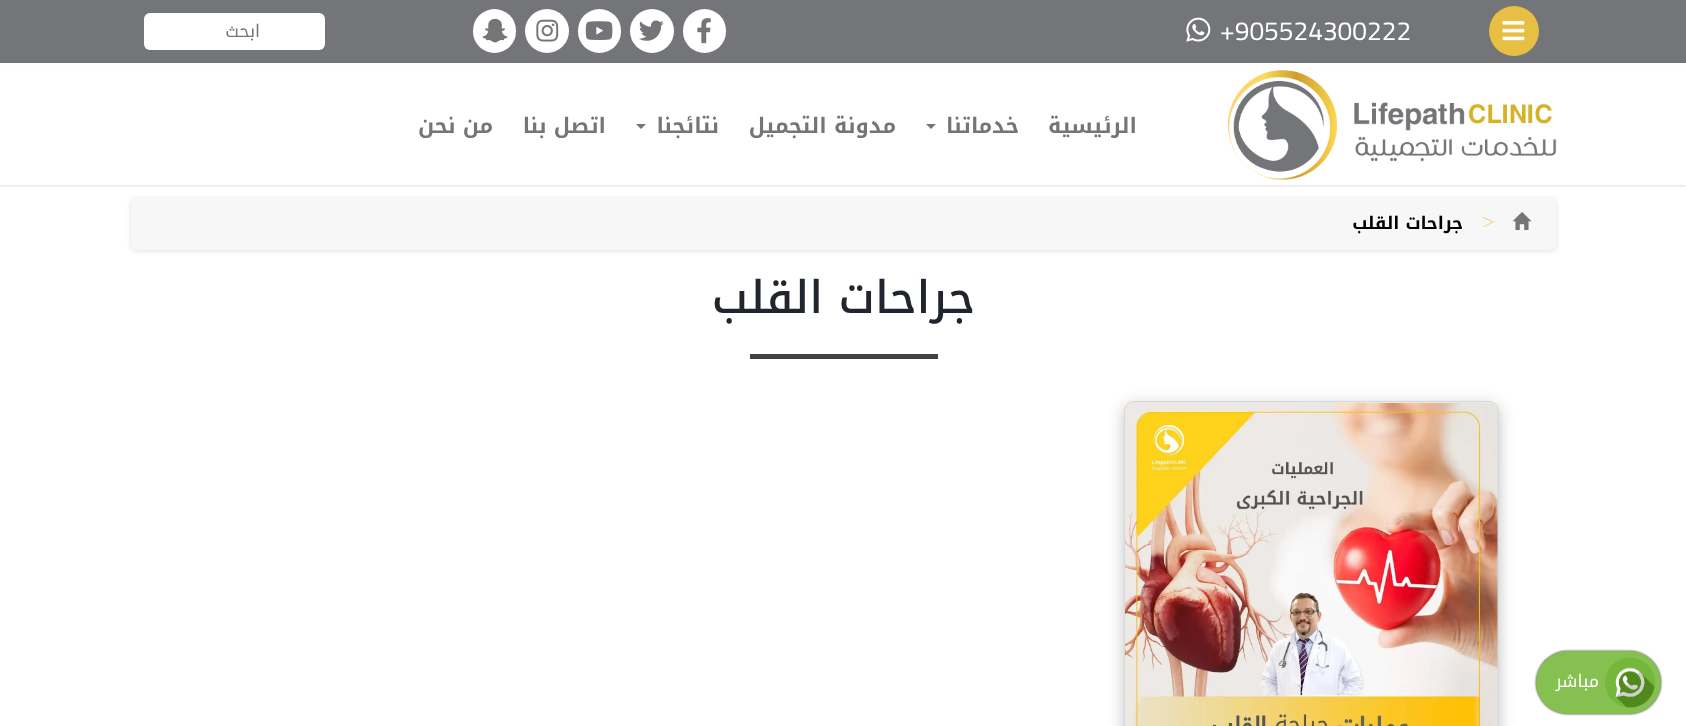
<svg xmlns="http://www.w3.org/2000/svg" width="1686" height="726">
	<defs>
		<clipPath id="clip1"><path d="M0 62H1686V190H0ZM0 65H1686V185H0Z" clip-rule="evenodd" /></clipPath>
	</defs>
	<rect width="100%" height="100%" fill="#FFFFFF" />
	<g clip-path="url(#clip1)">
		<rect x="0" y="66" width="1686" height="120" fill="#DDDDDD" filter="blur(1px)" />
	</g>
	<rect x="0" y="0" width="1686" height="63" fill="#747578" />
	<circle cx="1514" cy="31" r="25" fill="#E6BF43" />
	<image x="1502" y="21" width="23" height="20" href="assets/img1.png" />
	<text x="1220" y="40" font-family="Cairo" font-size="26.25" fill="#FFFFFF">+905524300222</text>
	<image x="1186" y="17" width="25" height="25" href="assets/img2.png" />
	<rect x="683" y="9" width="43" height="44" rx="21.5" fill="#FFFFFF" />
	<image x="697" y="18" width="14" height="26" href="assets/img3.png" />
	<circle cx="652" cy="31" r="22" fill="#FFFFFF" />
	<image x="639" y="20" width="25" height="21" href="assets/img4.png" />
	<rect x="578" y="9" width="43" height="44" rx="21.5" fill="#FFFFFF" />
	<image x="585" y="21" width="28" height="19" href="assets/img5.png" />
	<circle cx="547" cy="31" r="22" fill="#FFFFFF" />
	<image x="536" y="19" width="23" height="23" href="assets/img6.png" />
	<rect x="473" y="9" width="43" height="44" rx="21.5" fill="#FFFFFF" />
	<image x="482" y="18" width="26" height="25" href="assets/img7.png" />
	<rect x="144" y="13" width="181" height="37" rx="6" fill="#FFFFFF" />
	<text x="260" y="37" font-family="Noto Kufi Arabic" font-size="17.5" direction="rtl" fill="#747578">ابحث</text>
	<image x="1227" y="70" width="330" height="110" href="assets/img8.png" />
	<g font-family="Noto Kufi Arabic" font-size="21.25" font-weight="700" direction="rtl" fill="#747578">
		<text x="1137" y="133">الرئيسية</text>
		<text x="1019" y="133">خدماتنا</text>
	</g>
	<path d="M926 124H936L931 129Z" fill="#747578" />
	<g font-family="Noto Kufi Arabic" font-size="21.25" font-weight="700" direction="rtl" fill="#747578">
		<text x="896" y="133">مدونة التجميل</text>
		<text x="719" y="133">نتائجنا</text>
	</g>
	<path d="M636 124H646L641 129Z" fill="#747578" />
	<g font-family="Noto Kufi Arabic" font-size="21.25" font-weight="700" direction="rtl" fill="#747578">
		<text x="606" y="133">اتصل بنا</text>
		<text x="493" y="133">من نحن</text>
	</g>
	<rect x="131" y="199" width="1425" height="52" rx="6" fill="#DDDDDD" filter="blur(2.5px)" />
	<rect x="131" y="198" width="1425" height="52" rx="6" fill="#F7F7F7" />
	<image x="1512" y="212" width="20" height="18" href="assets/img9.png" />
	<text x="1482" y="230" font-family="Noto Kufi Arabic" font-size="22" font-weight="100" fill="#E6BF43">&gt;</text>
	<text x="1463" y="229" font-family="Noto Kufi Arabic" font-size="17.5" font-weight="700" direction="rtl" fill="#000000">جراحات القلب</text>
	<text x="975" y="313" font-family="Noto Kufi Arabic" font-size="45" font-weight="500" direction="rtl" fill="#21252E">جراحات القلب</text>
	<rect x="750" y="354" width="188" height="5" fill="#414142" />
	<rect x="1124" y="405" width="375" height="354" rx="10" fill="#050A0F" fill-opacity="0.25" filter="blur(7.5px)" />
	<rect x="1124.5" y="401.5" width="374" height="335" rx="9.5" fill="none" stroke="#D8D8D8" />
	<image x="1125" y="403" width="373" height="323" href="assets/img10.png" />
	<rect x="1536" y="651" width="125" height="63" rx="31.5" fill="#333333" filter="blur(1px)" />
	<rect x="1536" y="651" width="125" height="63" rx="31.5" fill="#86C051" />
	<image x="1605" y="657" width="50" height="51" href="assets/img11.png" />
	<text x="1599" y="687" font-family="Noto Kufi Arabic" font-size="17.5" direction="rtl" fill="#FFFFFF">مباشر</text>
</svg>
